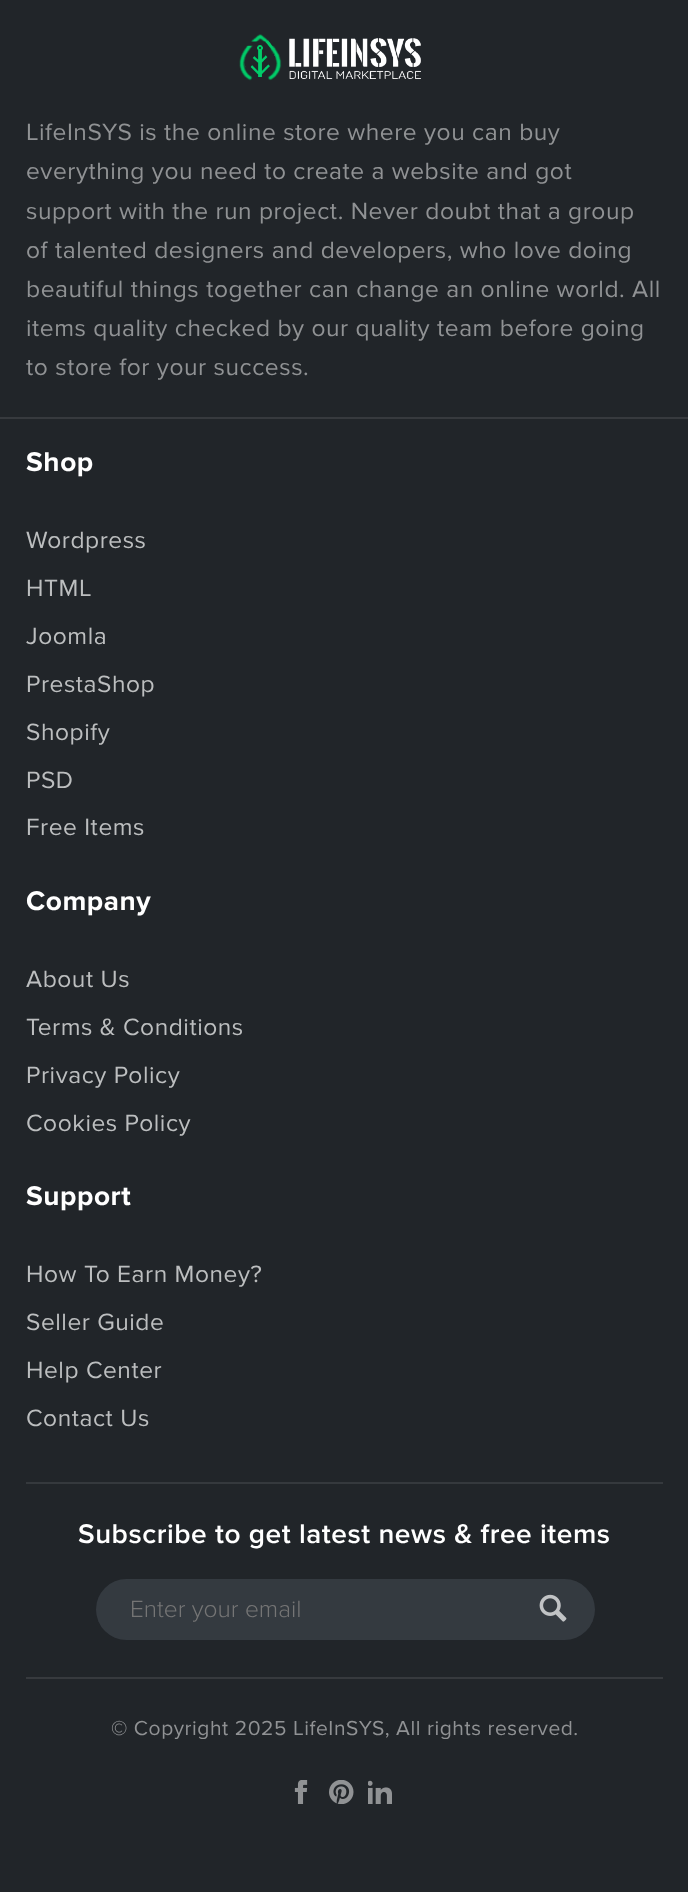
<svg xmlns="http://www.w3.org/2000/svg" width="688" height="1892">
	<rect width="100%" height="100%" fill="#212529" />
	<rect x="0" y="417" width="688" height="2" fill="#373A3E" />
	<image x="239" y="34" width="182" height="47" href="assets/img1.png" />
	<g font-family="Proxima Nova" font-size="24.5" letter-spacing="0.55" fill="#909294">
		<text x="26" y="140">LifeInSYS is the online store where you can buy</text>
		<text x="26" y="179">everything you need to create a website and got</text>
		<text x="26" y="219">support with the run project. Never doubt that a group</text>
		<text x="26" y="258">of talented designers and developers, who love doing</text>
		<text x="26" y="297">beautiful things together can change an online world. All</text>
		<text x="26" y="336">items quality checked by our quality team before going</text>
		<text x="26" y="375">to store for your success.</text>
	</g>
	<text x="26" y="471" font-family="Proxima Nova" font-size="28" font-weight="700" letter-spacing="0.55" fill="#FFFFFF">Shop</text>
	<g font-family="Proxima Nova" font-size="24.5" letter-spacing="0.55" fill="#BCBEBF">
		<text x="26" y="548">Wordpress</text>
		<text x="26" y="596">HTML</text>
		<text x="26" y="644">Joomla</text>
		<text x="26" y="692">PrestaShop</text>
		<text x="26" y="740">Shopify</text>
		<text x="26" y="788">PSD</text>
		<text x="26" y="835">Free Items</text>
	</g>
	<text x="26" y="910" font-family="Proxima Nova" font-size="28" font-weight="700" letter-spacing="0.55" fill="#FFFFFF">Company</text>
	<g font-family="Proxima Nova" font-size="24.5" letter-spacing="0.55" fill="#BCBEBF">
		<text x="26" y="987">About Us</text>
		<text x="26" y="1035">Terms &amp; Conditions</text>
		<text x="26" y="1083">Privacy Policy</text>
		<text x="26" y="1131">Cookies Policy</text>
	</g>
	<text x="26" y="1205" font-family="Proxima Nova" font-size="28" font-weight="700" letter-spacing="0.55" fill="#FFFFFF">Support</text>
	<g font-family="Proxima Nova" font-size="24.5" letter-spacing="0.55" fill="#BCBEBF">
		<text x="26" y="1282">How To Earn Money?</text>
		<text x="26" y="1330">Seller Guide</text>
		<text x="26" y="1378">Help Center</text>
		<text x="26" y="1426">Contact Us</text>
	</g>
	<rect x="26" y="1482" width="637" height="2" fill="#35393D" />
	<rect x="26" y="1677" width="637" height="2" fill="#373A3E" />
	<text x="78" y="1543" font-family="Proxima Nova" font-size="28" font-weight="600" letter-spacing="0.55" fill="#FFFFFF">Subscribe to get latest news &amp; free items</text>
	<rect x="96" y="1579" width="499" height="61" rx="30.5" fill="#343A40" />
	<text x="130" y="1617" font-family="Proxima Nova" font-size="24.5" font-weight="300" fill="#757575">Enter your email</text>
	<image x="539" y="1594" width="28" height="28" href="assets/img2.png" />
	<text x="111" y="1735" font-family="Proxima Nova" font-size="21" letter-spacing="0.55" fill="#909294">© Copyright 2025 LifeInSYS, All rights reserved.</text>
	<image x="294" y="1780" width="14" height="24" href="assets/img3.png" />
	<image x="329" y="1780" width="25" height="24" href="assets/img4.png" />
	<image x="368" y="1780" width="24" height="24" href="assets/img5.png" />
</svg>
